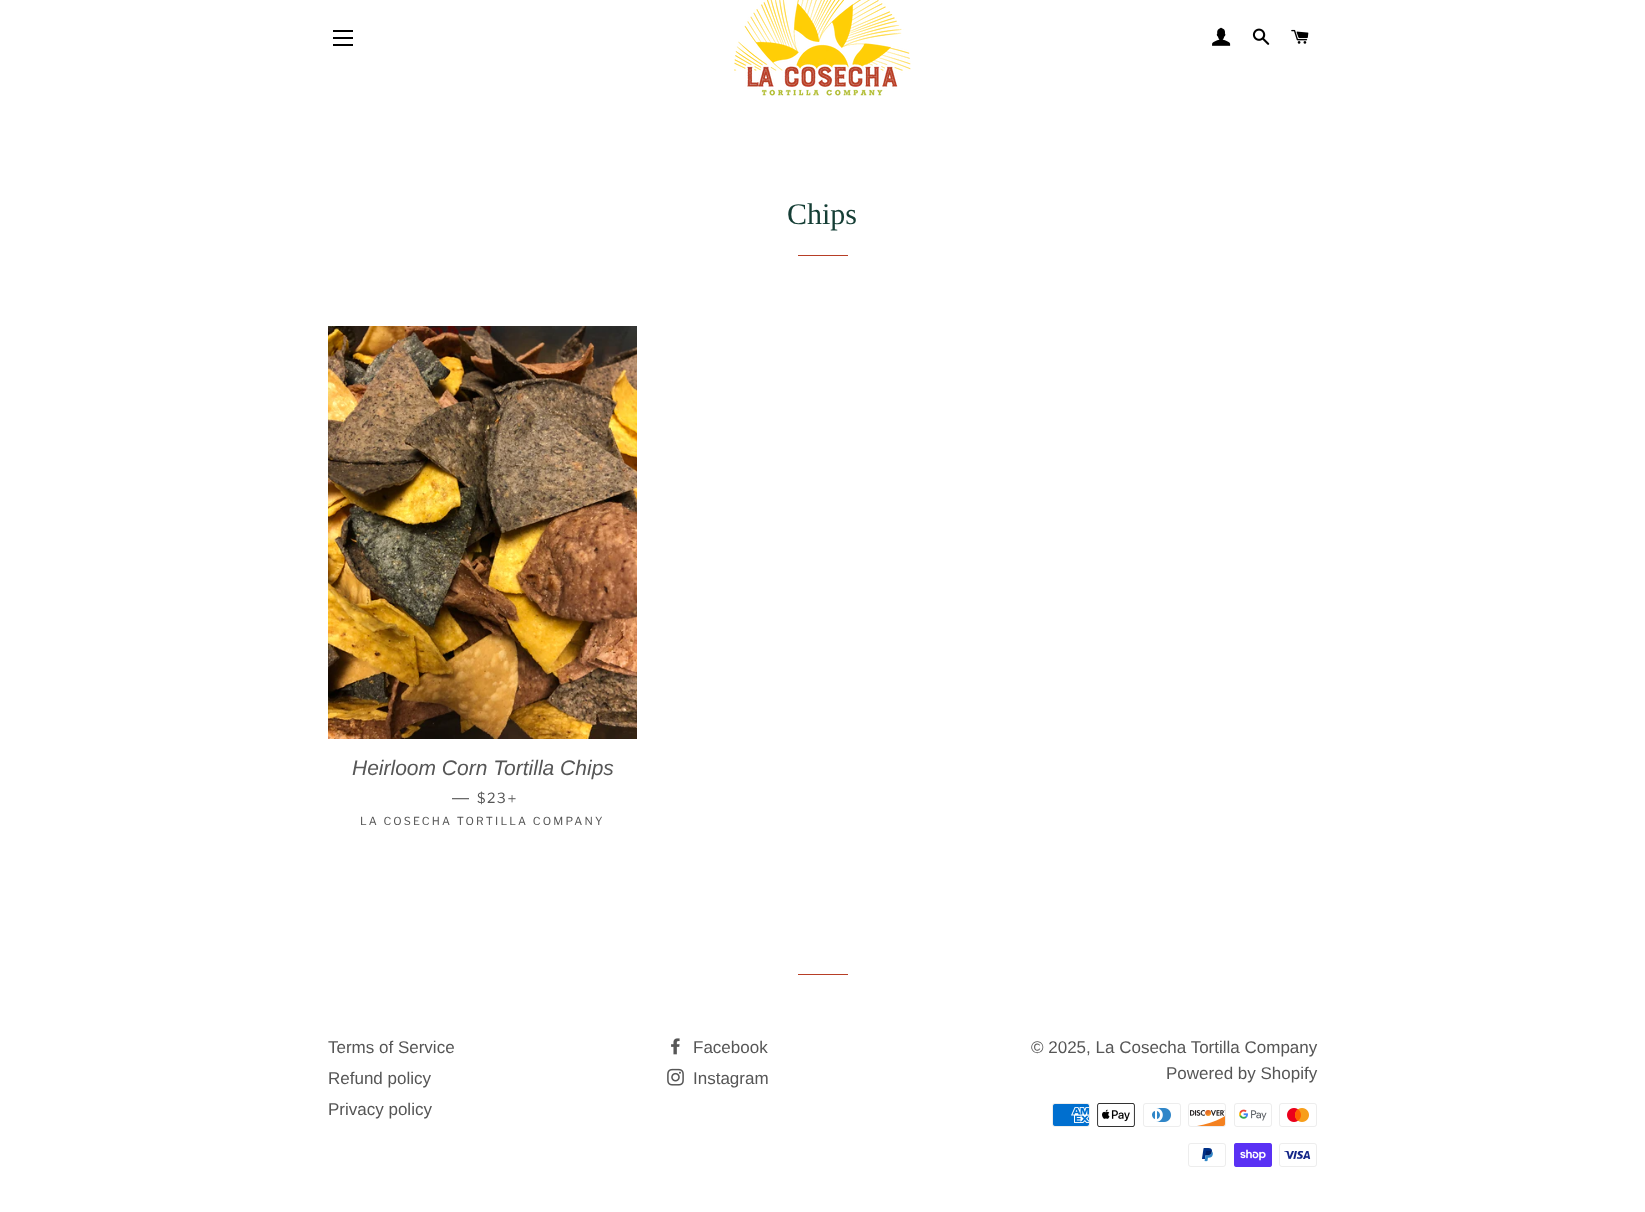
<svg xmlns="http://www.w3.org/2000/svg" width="1645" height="1212">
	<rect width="100%" height="100%" fill="#FFFFFF" />
	<rect x="333" y="30" width="20" height="2" fill="#000000" />
	<rect x="333" y="37" width="20" height="2" fill="#000000" />
	<rect x="333" y="44" width="20" height="2" fill="#000000" />
	<image x="734" y="0" width="177" height="96" href="assets/img1.png" />
	<image x="1212" y="27" width="19" height="19" href="assets/img2.png" />
	<image x="1252" y="28" width="18" height="17" href="assets/img3.png" />
	<image x="1291" y="29" width="18" height="15" href="assets/img4.png" />
	<text x="787" y="224" font-family="Liberation Serif" font-size="30" fill="#153E35">Chips</text>
	<rect x="798" y="255" width="50" height="1" fill="#B73E26" />
	<image x="328" y="326" width="309" height="413" href="assets/img5.png" />
	<text x="352" y="775" font-family="Liberation Sans" font-size="21" font-style="italic" fill="#565656">Heirloom Corn Tortilla Chips</text>
	<text x="452" y="803" font-family="Liberation Sans" font-size="17" fill="#565656">—</text>
	<text x="477" y="803" font-family="Libre Franklin" font-size="14" letter-spacing="1.5" fill="#565656">$23</text>
	<image x="508" y="795" width="8" height="8" href="assets/img6.png" />
	<text x="360" y="825" font-family="Libre Franklin" font-size="11" letter-spacing="2.2" fill="#565656">LA COSECHA TORTILLA COMPANY</text>
	<rect x="798" y="974" width="50" height="1" fill="#B73E26" />
	<g font-family="Liberation Sans" font-size="17" fill="#565656">
		<text x="328" y="1053">Terms of Service</text>
		<text x="328" y="1084">Refund policy</text>
		<text x="328" y="1115">Privacy policy</text>
	</g>
	<image x="671" y="1038" width="9" height="17" href="assets/img7.png" />
	<text x="693" y="1053" font-family="Liberation Sans" font-size="17" fill="#565656">Facebook</text>
	<image x="667" y="1068" width="17" height="18" href="assets/img8.png" />
	<g font-family="Liberation Sans" font-size="17" fill="#565656">
		<text x="693" y="1084">Instagram</text>
		<text x="1031" y="1053">© 2025, La Cosecha Tortilla Company</text>
		<text x="1166" y="1079">Powered by Shopify</text>
	</g>
	<image x="1052" y="1103" width="38" height="24" href="assets/img9.png" />
	<image x="1097" y="1103" width="38" height="24" href="assets/img10.png" />
	<image x="1143" y="1103" width="38" height="24" href="assets/img11.png" />
	<image x="1188" y="1103" width="38" height="24" href="assets/img12.png" />
	<image x="1234" y="1103" width="38" height="24" href="assets/img13.png" />
	<image x="1279" y="1103" width="38" height="24" href="assets/img14.png" />
	<image x="1188" y="1143" width="38" height="24" href="assets/img15.png" />
	<image x="1234" y="1143" width="38" height="24" href="assets/img16.png" />
	<image x="1279" y="1143" width="38" height="24" href="assets/img17.png" />
</svg>
